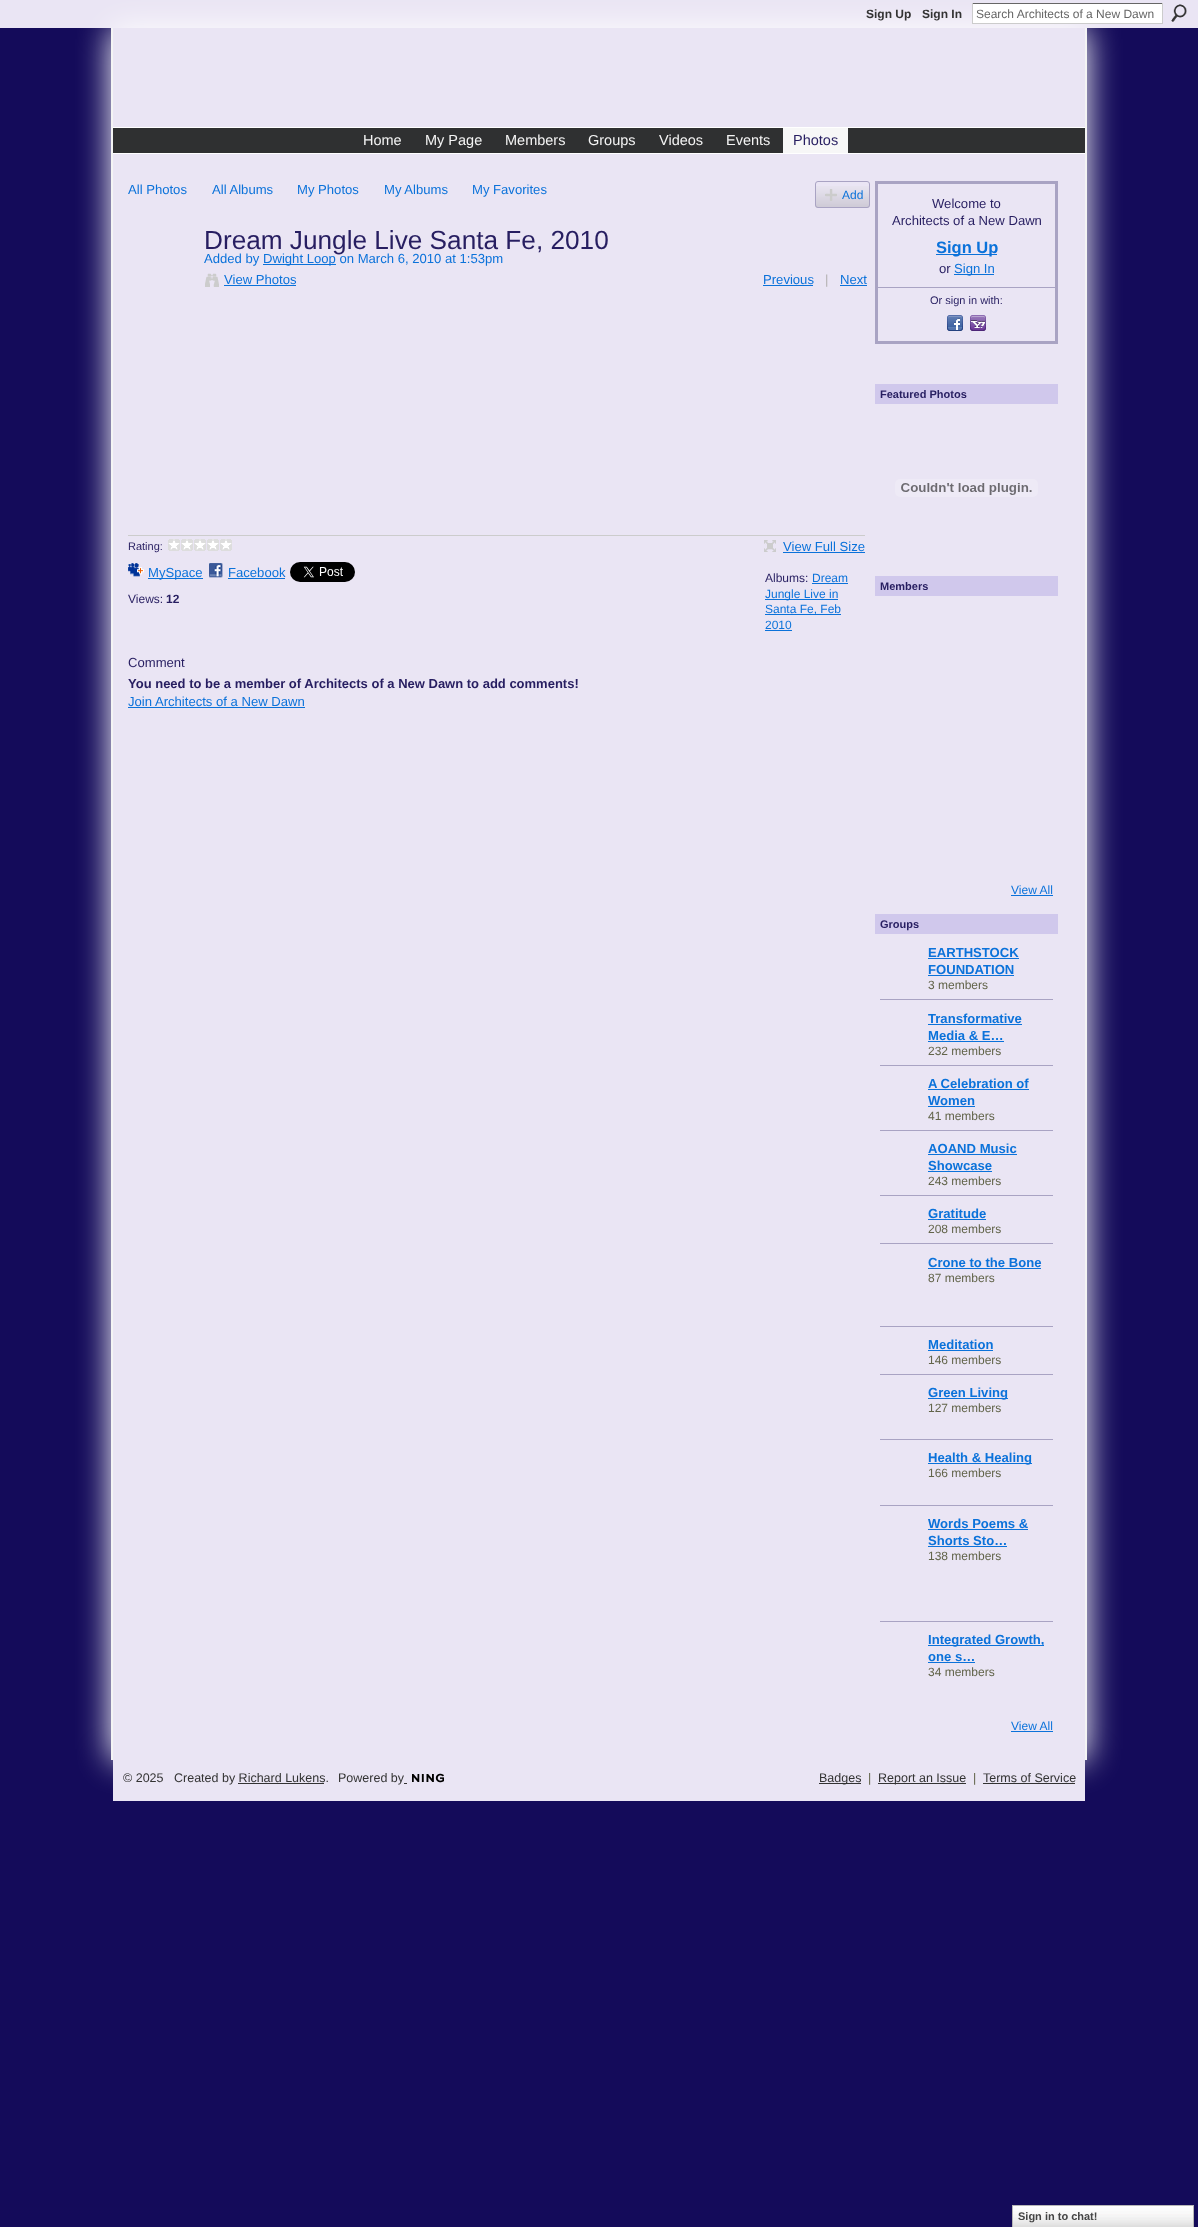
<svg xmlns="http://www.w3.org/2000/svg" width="1198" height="2227">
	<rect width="100%" height="100%" fill="#140B5A" />
	<rect x="0" y="0" width="1198" height="28" fill="#EAE5F4" />
	<rect x="111" y="28" width="976" height="1732" fill="#FFFFFF" filter="blur(16.5px)" />
	<g font-family="Liberation Sans" font-size="12" font-weight="700" fill="#333333">
		<text x="866" y="18">Sign Up</text>
		<text x="922" y="18">Sign In</text>
	</g>
	<rect x="973" y="4" width="189" height="19" fill="#FFFFFF" />
	<rect x="972" y="3" width="191" height="1" fill="#666666" />
	<rect x="1162" y="3" width="1" height="21" fill="#CCCCCC" />
	<rect x="972" y="23" width="191" height="1" fill="#CCCCCC" />
	<rect x="972" y="3" width="1" height="21" fill="#CCCCCC" />
	<text x="976" y="18" font-family="Liberation Sans" font-size="12" fill="#666666">Search Architects of a New Dawn</text>
	<image x="1171" y="4" width="16" height="18" href="assets/img1.png" />
	<rect x="113" y="28" width="972" height="1773" fill="#EAE5F4" />
	<rect x="1085" y="28" width="2" height="1732" fill="#F4F4F4" />
	<rect x="111" y="28" width="2" height="1732" fill="#F4F4F4" />
	<rect x="113" y="128" width="972" height="25" fill="#2F3031" />
	<rect x="113" y="127" width="972" height="1" fill="#FFFFFF" />
	<rect x="113" y="153" width="972" height="1" fill="#FFFFFF" />
	<g font-family="Liberation Sans" font-size="14.5" fill="#F4F4F4">
		<text x="363" y="145">Home</text>
		<text x="425" y="145">My Page</text>
		<text x="505" y="145">Members</text>
		<text x="588" y="145">Groups</text>
		<text x="659" y="145">Videos</text>
		<text x="726" y="145">Events</text>
	</g>
	<rect x="783" y="128" width="65" height="25" fill="#F7F7F7" />
	<text x="793" y="145" font-family="Liberation Sans" font-size="14.5" fill="#271E61">Photos</text>
	<g font-family="Liberation Sans" font-size="13.1" fill="#0B72DA">
		<text x="128" y="194">All Photos</text>
		<text x="212" y="194">All Albums</text>
		<text x="297" y="194">My Photos</text>
		<text x="384" y="194">My Albums</text>
		<text x="472" y="194">My Favorites</text>
	</g>
	<image x="815" y="186" width="55" height="22" href="assets/img2.png" />
	<rect x="815.5" y="181.5" width="54" height="26" rx="2.5" fill="none" stroke="#A9A3C3" />
	<image x="825" y="189" width="12" height="12" href="assets/img3.png" />
	<text x="842" y="199" font-family="Liberation Sans" font-size="12" fill="#0B72DA">Add</text>
	<text x="204" y="249" font-family="Liberation Sans" font-size="26.2" fill="#271E61">Dream Jungle Live Santa Fe, 2010</text>
	<text x="204" y="263" font-family="Liberation Sans" font-size="13.1" fill="#0B72DA">Added by</text>
	<rect x="263" y="264" width="73" height="1" fill="#0B72DA" />
	<text x="263" y="263" font-family="Liberation Sans" font-size="13.1" fill="#0B72DA">Dwight Loop on March 6, 2010 at 1:53pm</text>
	<image x="205" y="273" width="14" height="14" href="assets/img4.png" />
	<text x="224" y="284" font-family="Liberation Sans" font-size="13.1" fill="#0B72DA">View Photos</text>
	<rect x="224" y="285" width="72" height="1" fill="#0B72DA" />
	<text x="763" y="284" font-family="Liberation Sans" font-size="13.1" fill="#0B72DA">Previous</text>
	<rect x="763" y="285" width="50" height="1" fill="#0B72DA" />
	<text x="825" y="284" font-family="Liberation Sans" font-size="13.1" fill="#B4B1B0">|</text>
	<text x="840" y="284" font-family="Liberation Sans" font-size="13.1" fill="#0B72DA">Next</text>
	<rect x="840" y="285" width="27" height="1" fill="#0B72DA" />
	<rect x="128" y="535" width="737" height="1" fill="#CCCCCC" />
	<text x="128" y="550" font-family="Liberation Sans" font-size="11" fill="#271E61">Rating:</text>
	<image x="168" y="539" width="64" height="12" href="assets/img5.png" />
	<image x="128" y="563" width="16" height="14" href="assets/img6.png" />
	<rect x="148" y="578" width="55" height="1" fill="#0B72DA" />
	<text x="148" y="577" font-family="Liberation Sans" font-size="13.1" fill="#0B72DA">MySpace</text>
	<image x="209" y="563" width="14" height="15" href="assets/img7.png" />
	<text x="228" y="577" font-family="Liberation Sans" font-size="13.1" fill="#0B72DA">Facebook</text>
	<rect x="228" y="578" width="57" height="1" fill="#0B72DA" />
	<image x="290" y="562" width="65" height="20" href="assets/img8.png" />
	<text x="128" y="603" font-family="Liberation Sans" font-size="12" fill="#271E61">Views:</text>
	<text x="166" y="603" font-family="Liberation Sans" font-size="12" font-weight="700" fill="#271E61">12</text>
	<image x="764" y="540" width="12" height="12" href="assets/img9.png" />
	<text x="783" y="551" font-family="Liberation Sans" font-size="13.1" fill="#0B72DA">View Full Size</text>
	<rect x="783" y="552" width="82" height="1" fill="#0B72DA" />
	<text x="765" y="582" font-family="Liberation Sans" font-size="12" fill="#271E61">Albums:</text>
	<text x="812" y="582" font-family="Liberation Sans" font-size="12" fill="#0B72DA">Dream</text>
	<rect x="812" y="583" width="36" height="1" fill="#0B72DA" />
	<rect x="765" y="599" width="73" height="1" fill="#0B72DA" />
	<text x="765" y="598" font-family="Liberation Sans" font-size="12" fill="#0B72DA">Jungle Live in</text>
	<rect x="765" y="614" width="76" height="1" fill="#0B72DA" />
	<g font-family="Liberation Sans" font-size="12" fill="#0B72DA">
		<text x="765" y="613">Santa Fe, Feb</text>
		<text x="765" y="629">2010</text>
	</g>
	<rect x="765" y="630" width="27" height="1" fill="#0B72DA" />
	<text x="128" y="667" font-family="Liberation Sans" font-size="13.1" fill="#271E61">Comment</text>
	<text x="128" y="688" font-family="Liberation Sans" font-size="13" font-weight="700" fill="#271E61">You need to be a member of Architects of a New Dawn to add comments!</text>
	<text x="128" y="706" font-family="Liberation Sans" font-size="13.1" fill="#0B72DA">Join Architects of a New Dawn</text>
	<rect x="128" y="707" width="177" height="1" fill="#0B72DA" />
	<rect x="876.5" y="182.5" width="180" height="160" fill="none" stroke="#A9A3C3" stroke-width="3" />
	<g font-family="Liberation Sans" font-size="13.1" fill="#271E61">
		<text x="932" y="208">Welcome to</text>
		<text x="892" y="225">Architects of a New Dawn</text>
	</g>
	<rect x="936" y="254" width="61" height="1" fill="#0B72DA" />
	<text x="936" y="253" font-family="Liberation Sans" font-size="16.5" font-weight="700" fill="#0B72DA">Sign Up</text>
	<text x="939" y="273" font-family="Liberation Sans" font-size="13.1" fill="#271E61">or</text>
	<rect x="954" y="274" width="40" height="1" fill="#0B72DA" />
	<text x="954" y="273" font-family="Liberation Sans" font-size="13.1" fill="#0B72DA">Sign In</text>
	<rect x="878" y="287" width="177" height="1" fill="#A9A3C3" />
	<text x="930" y="304" font-family="Liberation Sans" font-size="11" fill="#271E61">Or sign in with:</text>
	<image x="947" y="315" width="16" height="16" href="assets/img10.png" />
	<image x="970" y="315" width="16" height="16" href="assets/img11.png" />
	<rect x="875" y="384" width="183" height="20" fill="#D0C8EC" />
	<text x="880" y="398" font-family="Liberation Sans" font-size="11" font-weight="700" fill="#271E61">Featured Photos</text>
	<image x="895" y="479" width="143" height="18" href="assets/img12.png" />
	<rect x="875" y="576" width="183" height="20" fill="#D0C8EC" />
	<text x="880" y="590" font-family="Liberation Sans" font-size="11" font-weight="700" fill="#271E61">Members</text>
	<text x="1011" y="894" font-family="Liberation Sans" font-size="12" fill="#0B72DA">View All</text>
	<rect x="1011" y="895" width="42" height="1" fill="#0B72DA" />
	<rect x="875" y="914" width="183" height="20" fill="#D0C8EC" />
	<text x="880" y="928" font-family="Liberation Sans" font-size="11" font-weight="700" fill="#271E61">Groups</text>
	<rect x="880" y="999" width="173" height="1" fill="#A9A3C3" />
	<text x="928" y="957" font-family="Liberation Sans" font-size="13.1" font-weight="700" fill="#0B72DA">EARTHSTOCK</text>
	<rect x="928" y="958" width="91" height="1" fill="#0B72DA" />
	<text x="928" y="974" font-family="Liberation Sans" font-size="13.1" font-weight="700" fill="#0B72DA">FOUNDATION</text>
	<rect x="928" y="975" width="86" height="1" fill="#0B72DA" />
	<text x="928" y="989" font-family="Liberation Sans" font-size="12" fill="#62644A">3 members</text>
	<rect x="880" y="1065" width="173" height="1" fill="#A9A3C3" />
	<text x="928" y="1023" font-family="Liberation Sans" font-size="13.1" font-weight="700" fill="#0B72DA">Transformative</text>
	<rect x="928" y="1024" width="94" height="1" fill="#0B72DA" />
	<text x="928" y="1040" font-family="Liberation Sans" font-size="13.1" font-weight="700" fill="#0B72DA">Media &amp; E…</text>
	<rect x="928" y="1041" width="76" height="1" fill="#0B72DA" />
	<text x="928" y="1055" font-family="Liberation Sans" font-size="12" fill="#62644A">232 members</text>
	<rect x="880" y="1130" width="173" height="1" fill="#A9A3C3" />
	<text x="928" y="1088" font-family="Liberation Sans" font-size="13.1" font-weight="700" fill="#0B72DA">A Celebration of</text>
	<rect x="928" y="1089" width="101" height="1" fill="#0B72DA" />
	<text x="928" y="1105" font-family="Liberation Sans" font-size="13.1" font-weight="700" fill="#0B72DA">Women</text>
	<rect x="928" y="1106" width="47" height="1" fill="#0B72DA" />
	<text x="928" y="1120" font-family="Liberation Sans" font-size="12" fill="#62644A">41 members</text>
	<rect x="880" y="1195" width="173" height="1" fill="#A9A3C3" />
	<text x="928" y="1153" font-family="Liberation Sans" font-size="13.1" font-weight="700" fill="#0B72DA">AOAND Music</text>
	<rect x="928" y="1154" width="89" height="1" fill="#0B72DA" />
	<text x="928" y="1170" font-family="Liberation Sans" font-size="13.1" font-weight="700" fill="#0B72DA">Showcase</text>
	<rect x="928" y="1171" width="64" height="1" fill="#0B72DA" />
	<text x="928" y="1185" font-family="Liberation Sans" font-size="12" fill="#62644A">243 members</text>
	<rect x="880" y="1243" width="173" height="1" fill="#A9A3C3" />
	<text x="928" y="1218" font-family="Liberation Sans" font-size="13.1" font-weight="700" fill="#0B72DA">Gratitude</text>
	<rect x="928" y="1219" width="58" height="1" fill="#0B72DA" />
	<text x="928" y="1233" font-family="Liberation Sans" font-size="12" fill="#62644A">208 members</text>
	<rect x="880" y="1326" width="173" height="1" fill="#A9A3C3" />
	<text x="928" y="1267" font-family="Liberation Sans" font-size="13.1" font-weight="700" fill="#0B72DA">Crone to the Bone</text>
	<rect x="928" y="1268" width="113" height="1" fill="#0B72DA" />
	<text x="928" y="1282" font-family="Liberation Sans" font-size="12" fill="#62644A">87 members</text>
	<rect x="880" y="1374" width="173" height="1" fill="#A9A3C3" />
	<text x="928" y="1349" font-family="Liberation Sans" font-size="13.1" font-weight="700" fill="#0B72DA">Meditation</text>
	<rect x="928" y="1350" width="65" height="1" fill="#0B72DA" />
	<text x="928" y="1364" font-family="Liberation Sans" font-size="12" fill="#62644A">146 members</text>
	<rect x="880" y="1439" width="173" height="1" fill="#A9A3C3" />
	<rect x="928" y="1398" width="80" height="1" fill="#0B72DA" />
	<text x="928" y="1397" font-family="Liberation Sans" font-size="13.1" font-weight="700" fill="#0B72DA">Green Living</text>
	<text x="928" y="1412" font-family="Liberation Sans" font-size="12" fill="#62644A">127 members</text>
	<rect x="880" y="1505" width="173" height="1" fill="#A9A3C3" />
	<rect x="928" y="1463" width="104" height="1" fill="#0B72DA" />
	<text x="928" y="1462" font-family="Liberation Sans" font-size="13.1" font-weight="700" fill="#0B72DA">Health &amp; Healing</text>
	<text x="928" y="1477" font-family="Liberation Sans" font-size="12" fill="#62644A">166 members</text>
	<rect x="880" y="1621" width="173" height="1" fill="#A9A3C3" />
	<text x="928" y="1528" font-family="Liberation Sans" font-size="13.1" font-weight="700" fill="#0B72DA">Words Poems &amp;</text>
	<rect x="928" y="1529" width="100" height="1" fill="#0B72DA" />
	<text x="928" y="1545" font-family="Liberation Sans" font-size="13.1" font-weight="700" fill="#0B72DA">Shorts Sto…</text>
	<rect x="928" y="1546" width="79" height="1" fill="#0B72DA" />
	<text x="928" y="1560" font-family="Liberation Sans" font-size="12" fill="#62644A">138 members</text>
	<rect x="928" y="1645" width="116" height="1" fill="#0B72DA" />
	<g font-family="Liberation Sans" font-size="13.1" font-weight="700" fill="#0B72DA">
		<text x="928" y="1644">Integrated Growth,</text>
		<text x="928" y="1661">one s…</text>
	</g>
	<rect x="928" y="1662" width="47" height="1" fill="#0B72DA" />
	<text x="928" y="1676" font-family="Liberation Sans" font-size="12" fill="#62644A">34 members</text>
	<text x="1011" y="1730" font-family="Liberation Sans" font-size="12" fill="#0B72DA">View All</text>
	<rect x="1011" y="1731" width="42" height="1" fill="#0B72DA" />
	<g font-family="Liberation Sans" font-size="12.5" fill="#333333">
		<text x="123" y="1782">© 2025</text>
		<text x="174" y="1782">Created by Richard Lukens.</text>
		<text x="338" y="1782">Powered by</text>
	</g>
	<image x="412" y="1773" width="32" height="10" href="assets/img13.png" />
	<rect x="238" y="1783" width="86" height="1" fill="#333333" />
	<rect x="404" y="1783" width="3" height="1" fill="#333333" />
	<rect x="819" y="1783" width="42" height="1" fill="#333333" />
	<text x="819" y="1782" font-family="Liberation Sans" font-size="12.5" fill="#333333">Badges</text>
	<text x="868" y="1782" font-family="Liberation Sans" font-size="12.5" fill="#62644A">|</text>
	<rect x="878" y="1783" width="88" height="1" fill="#333333" />
	<text x="878" y="1782" font-family="Liberation Sans" font-size="12.5" fill="#333333">Report an Issue</text>
	<text x="973" y="1782" font-family="Liberation Sans" font-size="12.5" fill="#62644A">|</text>
	<text x="983" y="1782" font-family="Liberation Sans" font-size="12.5" fill="#333333">Terms of Service</text>
	<rect x="983" y="1783" width="92" height="1" fill="#333333" />
	<image x="1013" y="2206" width="180" height="21" href="assets/img14.png" />
	<rect x="1012.5" y="2205.5" width="181" height="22" fill="none" stroke="#B7B7B7" />
	<text x="1018" y="2220" font-family="Liberation Sans" font-size="11" font-weight="700" fill="#454545">Sign in to chat!</text>
</svg>
